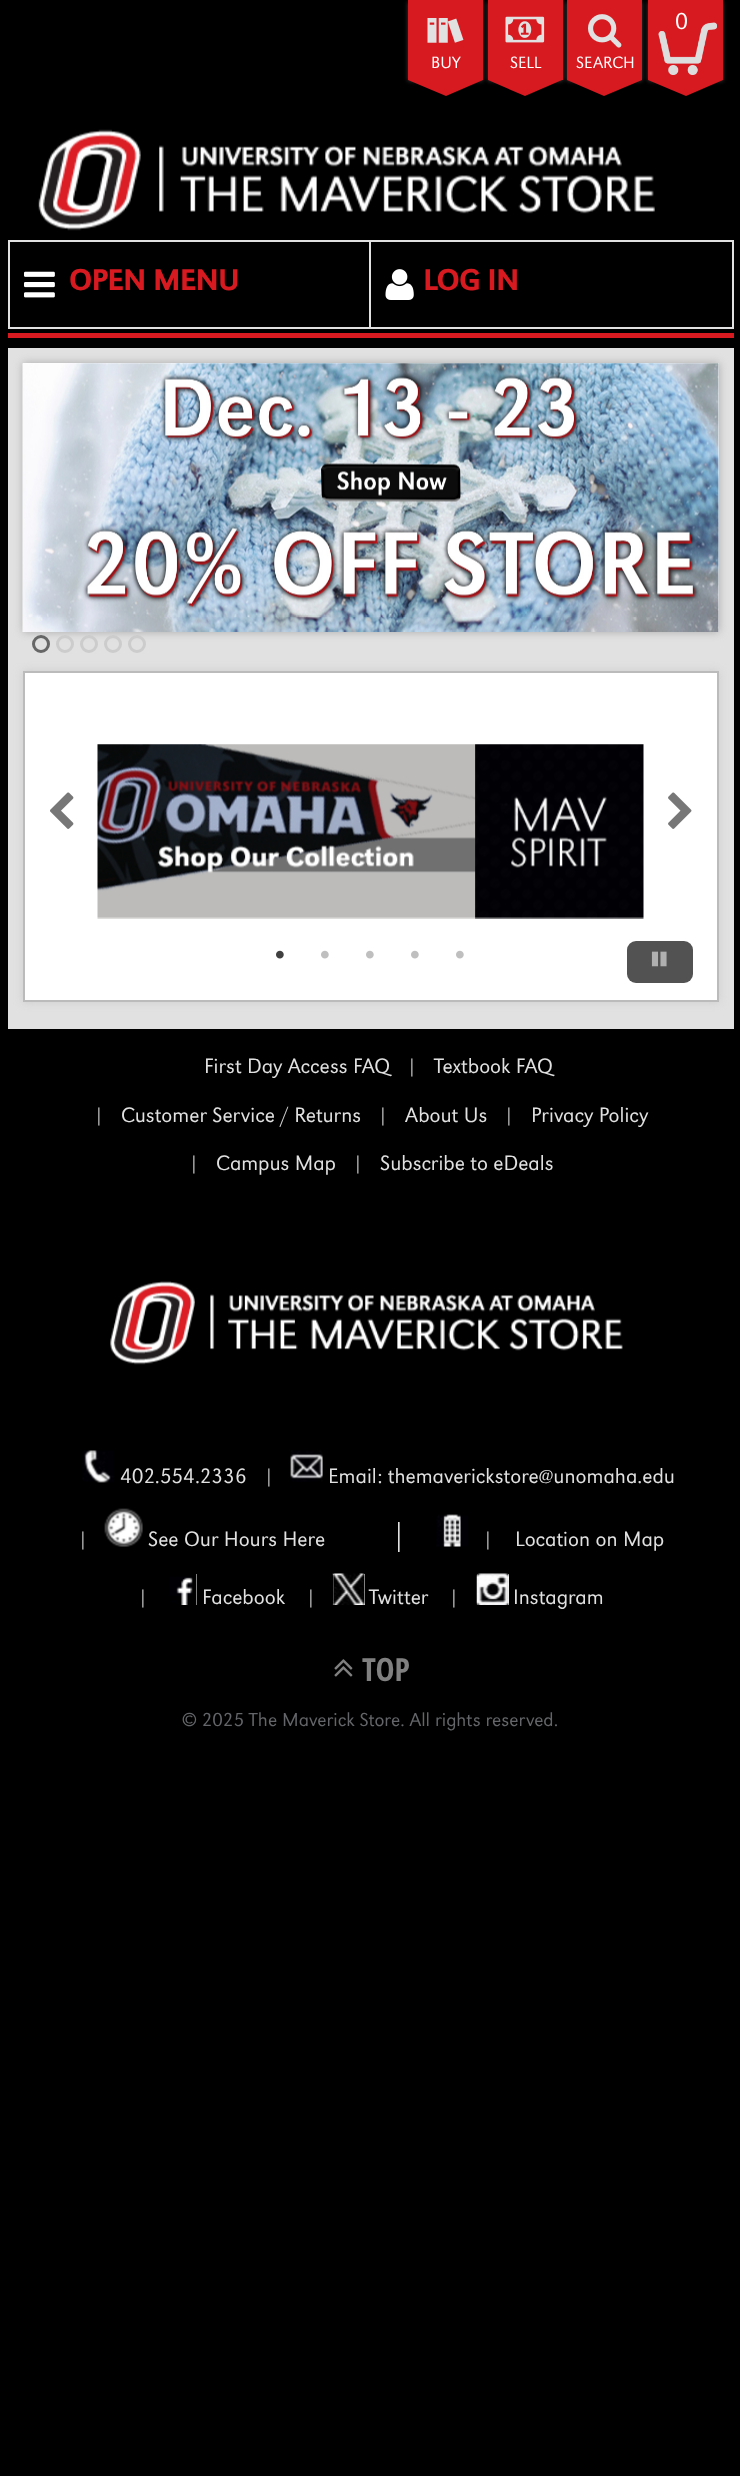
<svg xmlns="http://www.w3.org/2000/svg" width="740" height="2476">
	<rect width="100%" height="100%" fill="#000000" />
	<rect x="648" y="2" width="75" height="79" fill="#3F3F3F" filter="blur(2px)" />
	<rect x="648" y="0" width="75" height="80" fill="#D71920" />
	<image x="658" y="22" width="59" height="53" href="assets/img1.png" />
	<text x="675" y="29" font-family="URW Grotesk" font-size="24" font-weight="300" fill="#FFFFFF">0</text>
	<path d="M648 80H723L686 96Z" fill="#D71920" />
	<rect x="567" y="2" width="75" height="79" fill="#3F3F3F" filter="blur(2px)" />
	<rect x="567" y="0" width="75" height="80" fill="#D71920" />
	<path d="M567 80H642L604 96Z" fill="#D71920" />
	<rect x="488" y="2" width="75" height="79" fill="#3F3F3F" filter="blur(2px)" />
	<rect x="488" y="0" width="75" height="80" fill="#D71920" />
	<path d="M488 80H562L525 96Z" fill="#D71920" />
	<rect x="408" y="2" width="75" height="79" fill="#3F3F3F" filter="blur(2px)" />
	<rect x="408" y="0" width="75" height="80" fill="#D71920" />
	<image x="427" y="18" width="37" height="25" href="assets/img2.png" />
	<text x="431" y="68" font-family="URW Grotesk" font-size="17" font-weight="300" fill="#FFFFFF">BUY</text>
	<path d="M408 80H483L446 96Z" fill="#D71920" />
	<image x="505" y="16" width="40" height="27" href="assets/img3.png" />
	<text x="510" y="68" font-family="URW Grotesk" font-size="17" font-weight="300" fill="#FFFFFF">SELL</text>
	<image x="588" y="14" width="34" height="34" href="assets/img4.png" />
	<text x="576" y="68" font-family="URW Grotesk" font-size="17" font-weight="300" fill="#FFFFFF">SEARCH</text>
	<image x="38" y="129" width="617" height="102" href="assets/img5.png" />
	<rect x="9" y="241" width="361" height="87" fill="none" stroke="#E1E1E1" stroke-width="2" />
	<image x="24" y="271" width="31" height="27" href="assets/img6.png" />
	<text x="69" y="290" font-family="URW Grotesk" font-size="30" font-weight="700" fill="#D71920">OPEN MENU</text>
	<rect x="371" y="240" width="363" height="2" fill="#E1E1E1" />
	<rect x="732" y="240" width="2" height="89" fill="#E1E1E1" />
	<rect x="371" y="327" width="363" height="2" fill="#E1E1E1" />
	<image x="385" y="269" width="29" height="31" href="assets/img7.png" />
	<text x="423" y="290" font-family="URW Grotesk" font-size="30" font-weight="700" fill="#D71920">LOG IN</text>
	<rect x="8" y="333" width="726" height="5" fill="#D71920" />
	<rect x="8" y="348" width="726" height="681" fill="#E1E1E1" />
	<rect x="23" y="363" width="696" height="269" fill="#AAAAAA" filter="blur(4px)" />
	<rect x="23" y="363" width="696" height="269" fill="#FFFFFF" />
	<image x="22" y="363" width="697" height="269" href="assets/img8.png" />
	<circle cx="41" cy="644" r="7.5" fill="none" stroke="#666666" stroke-width="3" />
	<circle cx="65" cy="644" r="7.5" fill="none" stroke="#CCCCCC" stroke-width="3" />
	<circle cx="89" cy="644" r="7.5" fill="none" stroke="#CCCCCC" stroke-width="3" />
	<circle cx="113" cy="644" r="7.5" fill="none" stroke="#CCCCCC" stroke-width="3" />
	<circle cx="137" cy="644" r="7.5" fill="none" stroke="#CCCCCC" stroke-width="3" />
	<rect x="23" y="671" width="696" height="331" fill="#CCCCCC" filter="blur(4px)" />
	<rect x="24" y="672" width="694" height="329" fill="#FFFFFF" stroke="#BBBBBB" stroke-width="2" />
	<image x="50" y="792" width="24" height="37" href="assets/img9.png" />
	<image x="97" y="744" width="547" height="175" href="assets/img10.png" />
	<image x="668" y="792" width="24" height="37" href="assets/img11.png" />
	<image x="276" y="950" width="8" height="9" href="assets/img12.png" />
	<image x="321" y="950" width="8" height="9" href="assets/img13.png" />
	<image x="366" y="950" width="8" height="9" href="assets/img13.png" />
	<image x="411" y="950" width="8" height="9" href="assets/img13.png" />
	<image x="456" y="950" width="8" height="9" href="assets/img13.png" />
	<rect x="627" y="941" width="66" height="42" rx="9" fill="#525252" />
	<image x="651" y="951" width="16" height="16" href="assets/img14.png" />
	<g font-family="URW Grotesk" font-size="21.6" font-weight="300" fill="#E1E1E1">
		<text x="204" y="1073">First Day Access FAQ</text>
		<text x="406" y="1073">|</text>
		<text x="434" y="1073">Textbook FAQ</text>
		<text x="93" y="1122">|</text>
		<text x="121" y="1122">Customer Service / Returns</text>
		<text x="377" y="1122">|</text>
		<text x="405" y="1122">About Us</text>
		<text x="503" y="1122">|</text>
		<text x="531" y="1122">Privacy Policy</text>
		<text x="188" y="1170">|</text>
		<text x="216" y="1170">Campus Map</text>
		<text x="352" y="1170">|</text>
		<text x="380" y="1170">Subscribe to eDeals</text>
	</g>
	<image x="110" y="1281" width="513" height="84" href="assets/img15.png" />
	<image x="82" y="1450" width="32" height="33" href="assets/img16.png" />
	<g font-family="URW Grotesk" font-size="21.6" font-weight="300" fill="#E1E1E1">
		<text x="120" y="1483">402.554.2336</text>
		<text x="263" y="1483">|</text>
	</g>
	<image x="290" y="1450" width="33" height="32" href="assets/img17.png" />
	<g font-family="URW Grotesk" font-size="21.6" font-weight="300" fill="#E1E1E1">
		<text x="328" y="1483">Email: themaverickstore@unomaha.edu</text>
		<text x="77" y="1546">|</text>
	</g>
	<image x="104" y="1508" width="39" height="39" href="assets/img18.png" />
	<text x="148" y="1546" font-family="URW Grotesk" font-size="21.6" font-weight="300" fill="#E1E1E1">See Our Hours Here</text>
	<text x="389" y="1546" font-family="URW Grotesk" font-size="36" font-weight="300" fill="#E1E1E1">|</text>
	<image x="436" y="1514" width="32" height="33" href="assets/img19.png" />
	<g font-family="URW Grotesk" font-size="21.6" font-weight="300" fill="#E1E1E1">
		<text x="482" y="1546">|</text>
		<text x="515" y="1546">Location on Map</text>
	</g>
	<rect x="176" y="1574" width="21" height="31" fill="#FFFFFF" />
	<image x="165" y="1574" width="32" height="31" href="assets/img20.png" />
	<g font-family="URW Grotesk" font-size="21.6" font-weight="300" fill="#E1E1E1">
		<text x="137" y="1604">|</text>
		<text x="202" y="1604">Facebook</text>
	</g>
	<rect x="333" y="1574" width="32" height="31" fill="#FFFFFF" />
	<image x="332" y="1573" width="33" height="32" href="assets/img21.png" />
	<g font-family="URW Grotesk" font-size="21.6" font-weight="300" fill="#E1E1E1">
		<text x="305" y="1604">|</text>
		<text x="369" y="1604">Twitter</text>
	</g>
	<rect x="477" y="1574" width="32" height="31" fill="#FFFFFF" />
	<image x="476" y="1573" width="33" height="32" href="assets/img22.png" />
	<g font-family="URW Grotesk" font-size="21.6" font-weight="300" fill="#E1E1E1">
		<text x="448" y="1604">|</text>
		<text x="513" y="1604">Instagram</text>
	</g>
	<image x="334" y="1659" width="19" height="18" href="assets/img23.png" />
	<text x="362" y="1681" font-family="Open Sans Condensed" font-size="32" font-weight="700" fill="#808080">TOP</text>
	<text x="182" y="1726" font-family="URW Grotesk" font-size="19.5" font-weight="300" fill="#636568">© 2025 The Maverick Store. All rights reserved.</text>
</svg>
